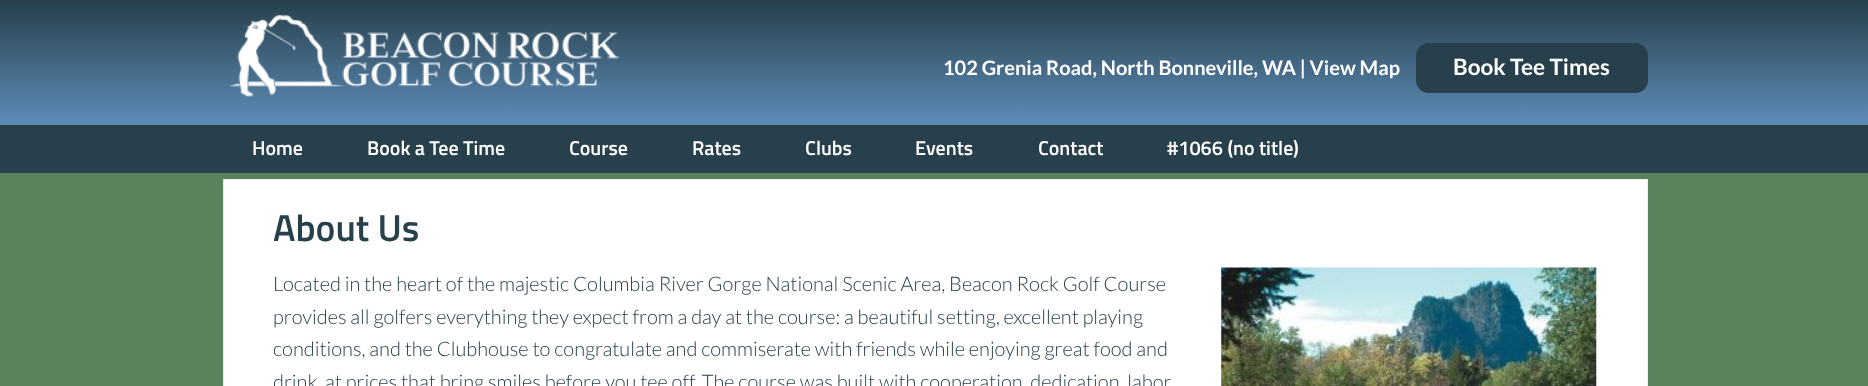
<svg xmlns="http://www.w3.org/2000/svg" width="1868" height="386">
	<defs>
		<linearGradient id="g1" gradientUnits="userSpaceOnUse" x1="934" y1="0" x2="934" y2="125"><stop offset="0" stop-color="#27404B" /><stop offset="1" stop-color="#5D8DB9" /></linearGradient>
	</defs>
	<rect width="100%" height="100%" fill="#FFFFFF" />
	<rect x="0" y="0" width="1868" height="125" fill="url(#g1)" />
	<image x="229" y="14" width="390" height="83" href="assets/img1.png" />
	<text x="943" y="75" font-family="Lato" font-size="20" font-weight="700" fill="#FFFFFF">102 Grenia Road, North Bonneville, WA | View Map</text>
	<rect x="1416" y="43" width="232" height="50" rx="13" fill="#27404B" />
	<text x="1453" y="75" font-family="Lato" font-size="22.5" font-weight="700" fill="#FFFFFF">Book Tee Times</text>
	<rect x="0" y="125" width="1868" height="48" fill="#27404B" />
	<rect x="0" y="173" width="1868" height="213" fill="#5A835D" />
	<g font-family="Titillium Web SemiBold" font-size="20" font-weight="600" fill="#FFFFFF">
		<text x="252" y="155">Home</text>
		<text x="367" y="155">Book a Tee Time</text>
		<text x="569" y="155">Course</text>
		<text x="692" y="155">Rates</text>
		<text x="805" y="155">Clubs</text>
		<text x="915" y="155">Events</text>
		<text x="1038" y="155">Contact</text>
		<text x="1167" y="155">#1066 (no title)</text>
	</g>
	<rect x="223.5" y="179.5" width="1424" height="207" fill="#FFFFFF" stroke="#ECECEC" />
	<text x="273" y="241" font-family="Titillium Web SemiBold" font-size="37.5" font-weight="600" fill="#27404B">About Us</text>
	<text x="273" y="291" font-family="Lato" font-size="20" font-weight="300" fill="#27404B">Located in the heart of the majestic Columbia River Gorge National Scenic Area, Beacon Rock Golf Course</text>
	<image x="1221" y="267" width="376" height="119" href="assets/img2.png" />
	<g font-family="Lato" font-size="20" font-weight="300" fill="#27404B">
		<text x="273" y="324">provides all golfers everything they expect from a day at the course: a beautiful setting, excellent playing</text>
		<text x="273" y="356">conditions, and the Clubhouse to congratulate and commiserate with friends while enjoying great food and</text>
		<text x="273" y="389">drink, at prices that bring smiles before you tee off. The course was built with cooperation, dedication, labor,</text>
	</g>
</svg>
